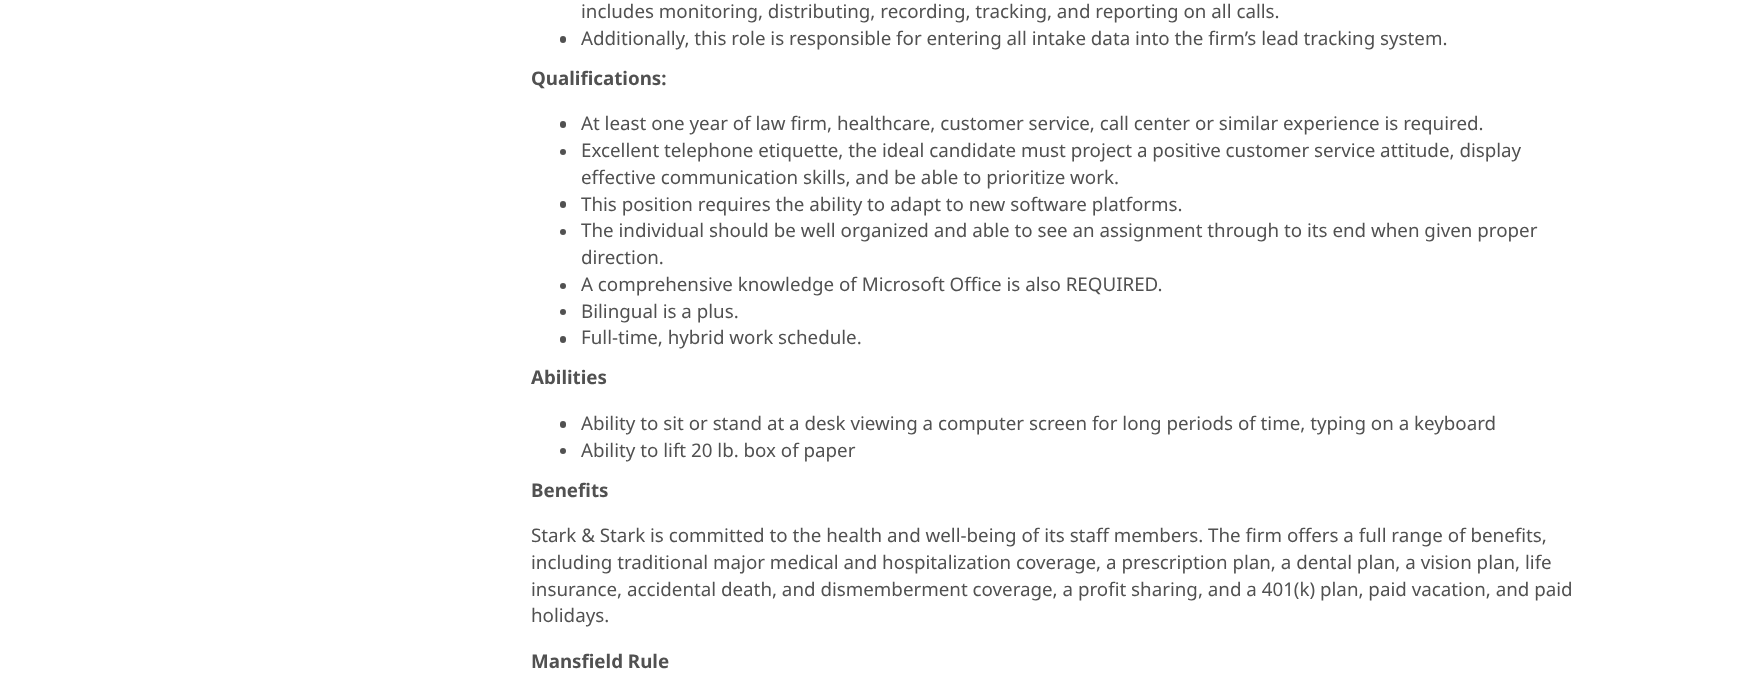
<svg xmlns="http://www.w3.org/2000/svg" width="1754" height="677">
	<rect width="100%" height="100%" fill="#FFFFFF" />
	<text x="581" y="18" font-family="Noto Sans" font-size="18.75" fill="#515151">includes monitoring, distributing, recording, tracking, and reporting on all calls.</text>
	<rect x="560" y="36" width="6" height="7" rx="3" fill="#515151" />
	<text x="581" y="45" font-family="Noto Sans" font-size="18.75" fill="#515151">Additionally, this role is responsible for entering all intake data into the firm’s lead tracking system.</text>
	<text x="531" y="85" font-family="Noto Sans" font-size="18.75" font-weight="700" fill="#515151">Qualifications:</text>
	<rect x="560" y="121" width="6" height="7" rx="3" fill="#515151" />
	<text x="581" y="130" font-family="Noto Sans" font-size="18.75" fill="#515151">At least one year of law firm, healthcare, customer service, call center or similar experience is required.</text>
	<circle cx="563" cy="152" r="3" fill="#515151" />
	<g font-family="Noto Sans" font-size="18.75" fill="#515151">
		<text x="581" y="157">Excellent telephone etiquette, the ideal candidate must project a positive customer service attitude, display</text>
		<text x="581" y="184">effective communication skills, and be able to prioritize work.</text>
	</g>
	<rect x="560" y="201" width="6" height="7" rx="3" fill="#515151" />
	<text x="581" y="211" font-family="Noto Sans" font-size="18.75" fill="#515151">This position requires the ability to adapt to new software platforms.</text>
	<circle cx="563" cy="232" r="3" fill="#515151" />
	<g font-family="Noto Sans" font-size="18.75" fill="#515151">
		<text x="581" y="237">The individual should be well organized and able to see an assignment through to its end when given proper</text>
		<text x="581" y="264">direction.</text>
	</g>
	<circle cx="563" cy="286" r="3" fill="#515151" />
	<text x="581" y="291" font-family="Noto Sans" font-size="18.75" fill="#515151">A comprehensive knowledge of Microsoft Office is also REQUIRED.</text>
	<circle cx="563" cy="312" r="3" fill="#515151" />
	<text x="581" y="318" font-family="Noto Sans" font-size="18.75" fill="#515151">Bilingual is a plus.</text>
	<rect x="560" y="336" width="6" height="7" rx="3" fill="#515151" />
	<text x="581" y="344" font-family="Noto Sans" font-size="18.75" fill="#515151">Full-time, hybrid work schedule.</text>
	<text x="531" y="384" font-family="Noto Sans" font-size="18.75" font-weight="700" fill="#515151">Abilities</text>
	<rect x="560" y="421" width="6" height="7" rx="3" fill="#515151" />
	<text x="581" y="430" font-family="Noto Sans" font-size="18.75" fill="#515151">Ability to sit or stand at a desk viewing a computer screen for long periods of time, typing on a keyboard</text>
	<circle cx="563" cy="451" r="3" fill="#515151" />
	<text x="581" y="457" font-family="Noto Sans" font-size="18.75" fill="#515151">Ability to lift 20 lb. box of paper</text>
	<text x="531" y="497" font-family="Noto Sans" font-size="18.75" font-weight="700" fill="#515151">Benefits</text>
	<g font-family="Noto Sans" font-size="18.75" fill="#515151">
		<text x="531" y="542">Stark &amp; Stark is committed to the health and well-being of its staff members. The firm offers a full range of benefits,</text>
		<text x="531" y="569">including traditional major medical and hospitalization coverage, a prescription plan, a dental plan, a vision plan, life</text>
		<text x="531" y="596">insurance, accidental death, and dismemberment coverage, a profit sharing, and a 401(k) plan, paid vacation, and paid</text>
		<text x="531" y="622">holidays.</text>
	</g>
	<text x="531" y="668" font-family="Noto Sans" font-size="18.75" font-weight="700" fill="#515151">Mansfield Rule</text>
</svg>
